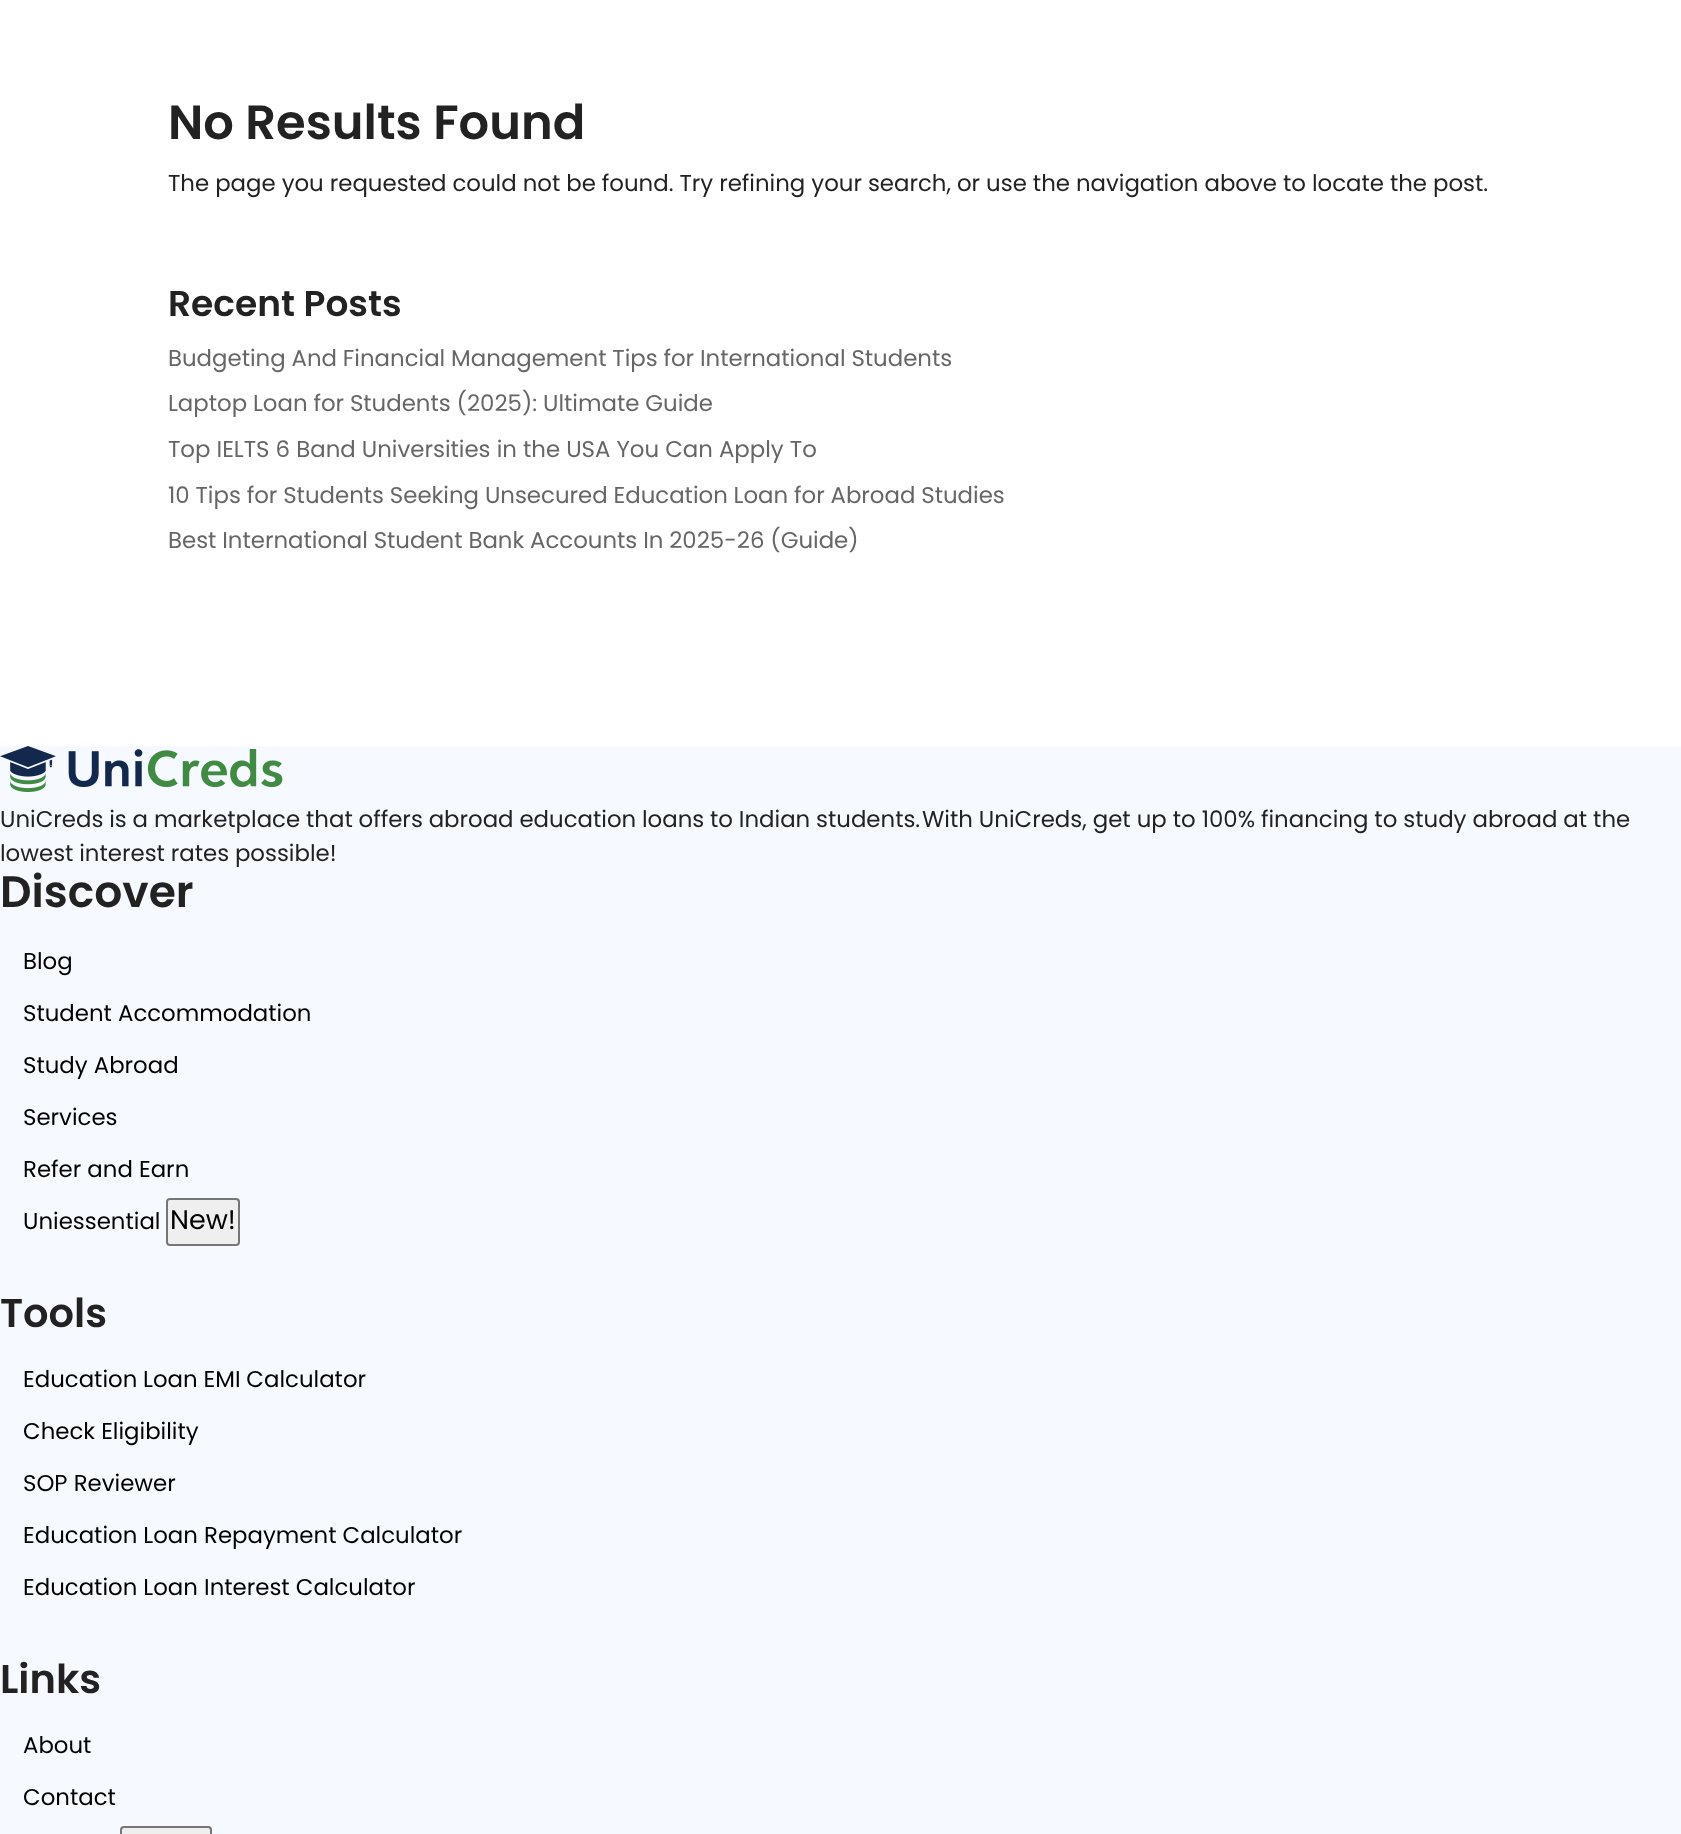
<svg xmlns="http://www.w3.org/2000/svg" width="1681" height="1834">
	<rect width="100%" height="100%" fill="#FFFFFF" />
	<text x="168" y="139" font-family="Poppins" font-size="48" font-weight="600" fill="#222222">No Results Found</text>
	<text x="168" y="191" word-spacing="-0.1" font-family="Poppins" font-size="22.85" fill="#222222">The page you requested could not be found. Try refining your search, or use the navigation above to locate the post.</text>
	<text x="168" y="316" font-family="Poppins" font-size="36" font-weight="600" fill="#222222">Recent Posts</text>
	<g font-family="Poppins" font-size="22.85" fill="#666666">
		<text x="168" y="366" word-spacing="-0.25">Budgeting And Financial Management Tips for International Students</text>
		<text x="168" y="411" word-spacing="-0.25">Laptop Loan for Students (2025): Ultimate Guide</text>
		<text x="168" y="457">Top IELTS 6 Band Universities in the USA You Can Apply To</text>
		<text x="168" y="503" word-spacing="-0.25">10 Tips for Students Seeking Unsecured Education Loan for Abroad Studies</text>
		<text x="168" y="548" word-spacing="-0.25">Best International Student Bank Accounts In 2025-26 (Guide)</text>
	</g>
	<rect x="0" y="746" width="1681" height="1088" fill="#F6F9FF" />
	<image x="0" y="746" width="283" height="46" href="assets/img1.png" />
	<g font-family="Poppins" font-size="22.85" fill="#222222">
		<text x="0" y="827" word-spacing="-0.25">UniCreds is a marketplace that offers abroad education loans to Indian students.</text>
		<text x="922" y="827" word-spacing="-0.1">With UniCreds, get up to 100% financing to study abroad at the</text>
		<text x="0" y="861" word-spacing="-0.25">lowest interest rates possible!</text>
	</g>
	<text x="0" y="907" font-family="Poppins" font-size="44" font-weight="600" fill="#222222">Discover</text>
	<g font-family="Poppins" font-size="22.85" fill="#000000">
		<text x="23" y="969">Blog</text>
		<text x="23" y="1021">Student Accommodation</text>
		<text x="23" y="1073">Study Abroad</text>
		<text x="23" y="1125">Services</text>
		<text x="23" y="1177">Refer and Earn</text>
		<text x="23" y="1229">Uniessential</text>
	</g>
	<rect x="167" y="1199" width="72" height="46" rx="3" fill="#EFEFEF" stroke="#767676" stroke-width="2" />
	<text x="170" y="1229" font-family="Poppins" font-size="27" fill="#000000">New!</text>
	<text x="0" y="1327" font-family="Poppins" font-size="40" font-weight="600" fill="#222222">Tools</text>
	<g font-family="Poppins" font-size="22.85" fill="#000000">
		<text x="23" y="1387" word-spacing="-0.25">Education Loan EMI Calculator</text>
		<text x="23" y="1439">Check Eligibility</text>
		<text x="23" y="1491">SOP Reviewer</text>
		<text x="23" y="1543">Education Loan Repayment Calculator</text>
		<text x="23" y="1595">Education Loan Interest Calculator</text>
	</g>
	<text x="0" y="1693" font-family="Poppins" font-size="40" font-weight="600" fill="#222222">Links</text>
	<g font-family="Poppins" font-size="22.85" fill="#000000">
		<text x="23" y="1753">About</text>
		<text x="23" y="1805">Contact</text>
	</g>
	<rect x="121" y="1827" width="90" height="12" rx="3" fill="#EFEFEF" stroke="#767676" stroke-width="2" />
</svg>
